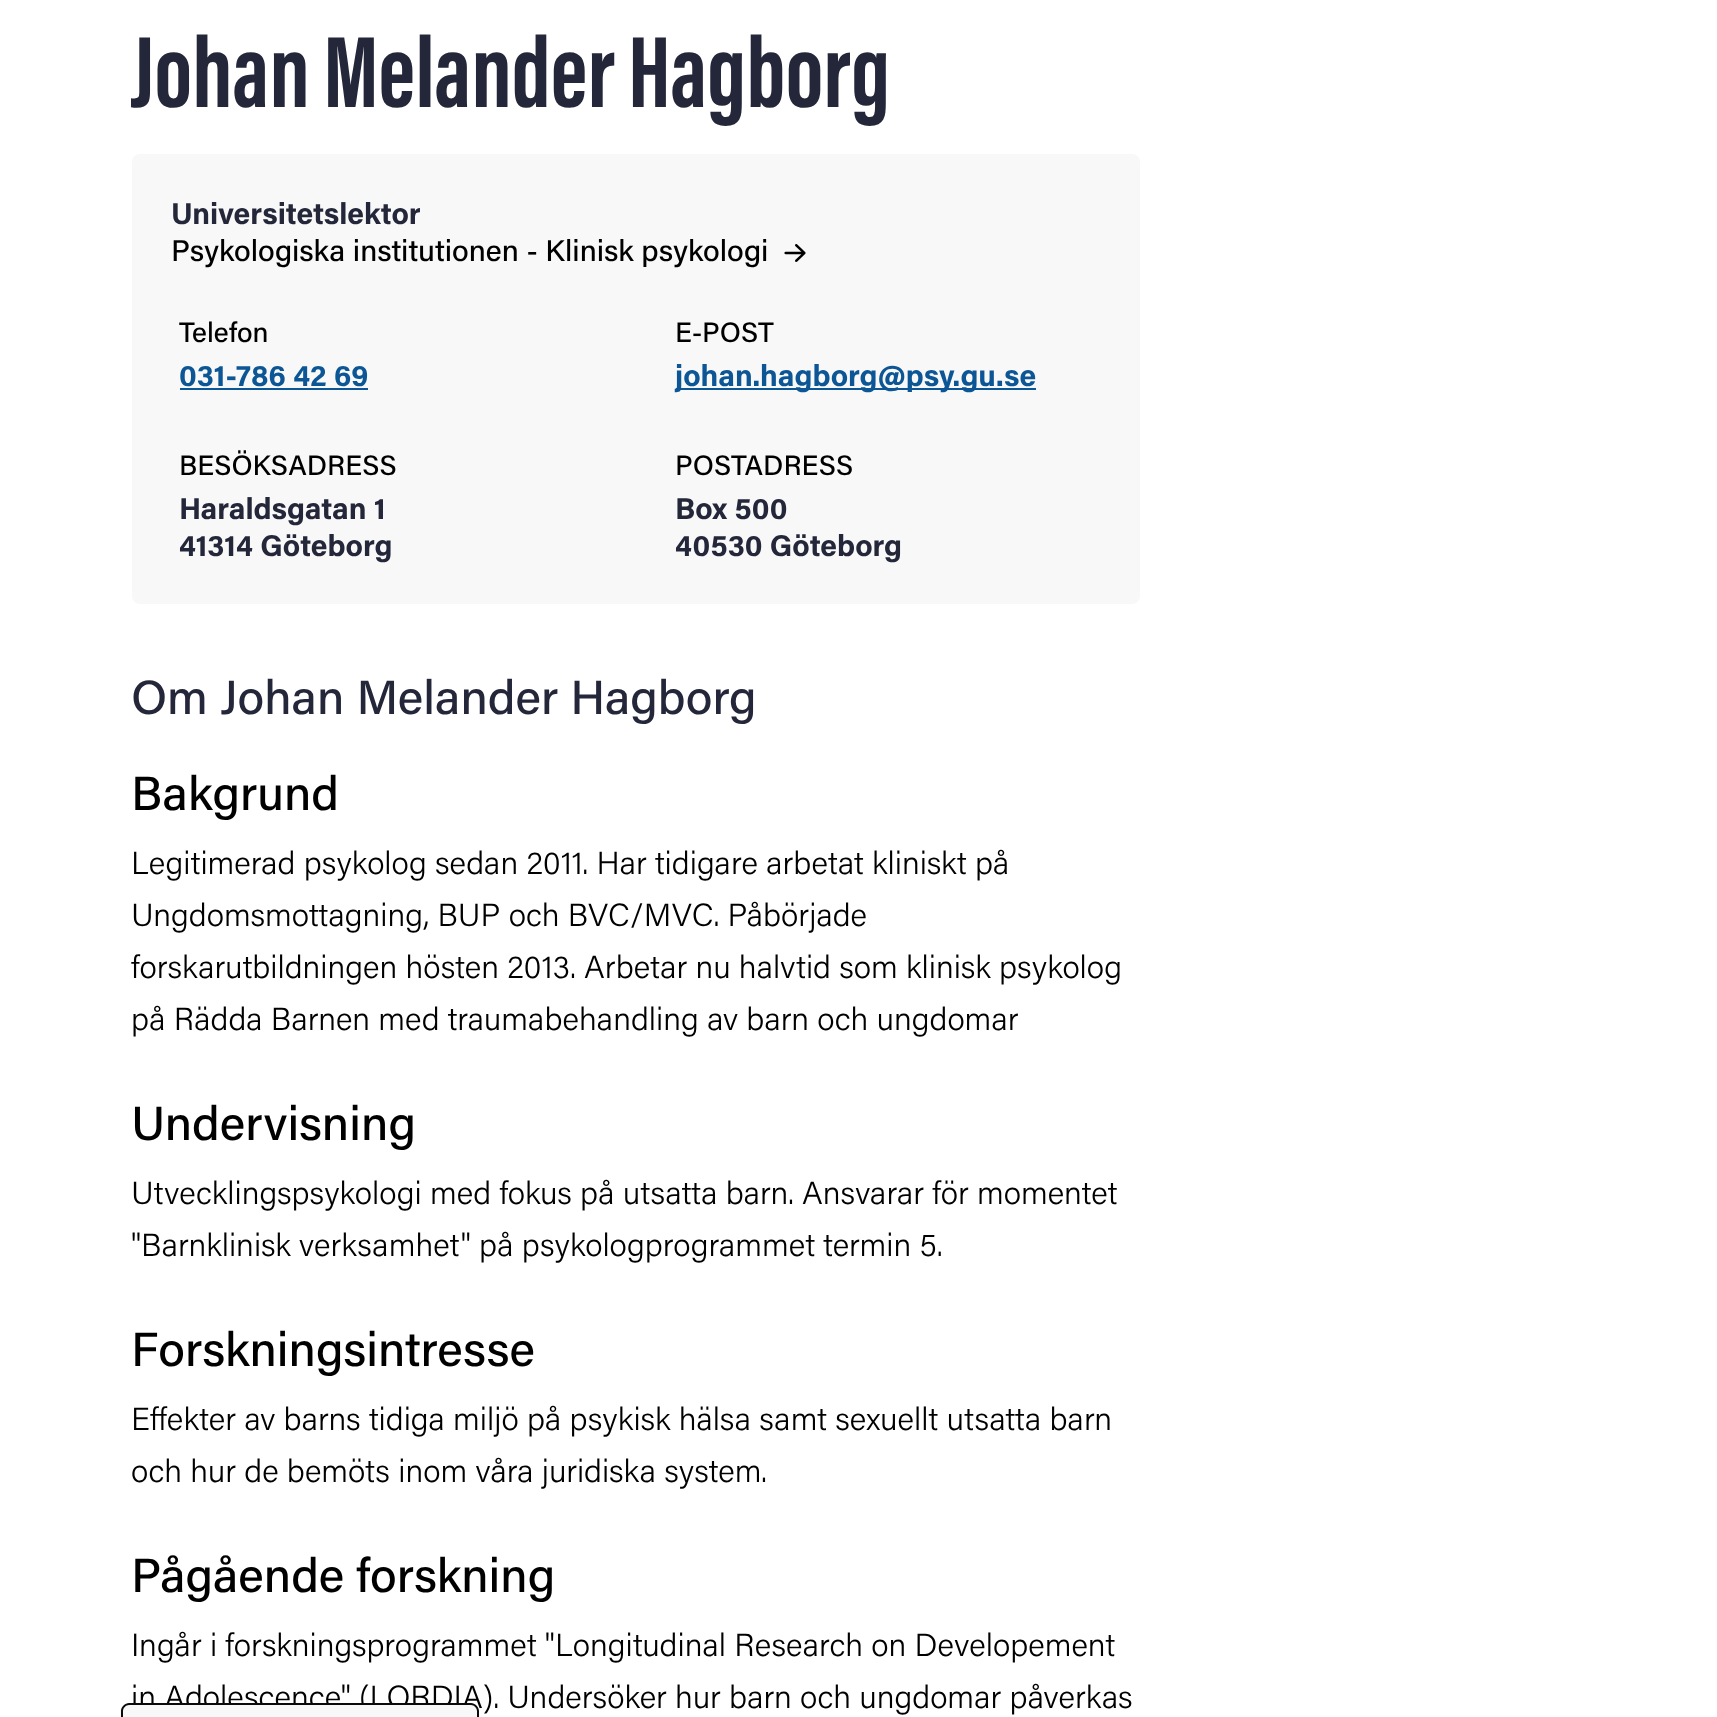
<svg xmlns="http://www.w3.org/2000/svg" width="1717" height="1717">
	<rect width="100%" height="100%" fill="#FFFFFF" />
	<text x="131" y="107" font-family="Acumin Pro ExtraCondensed" font-size="104" font-weight="700" fill="#24273A">Johan Melander Hagborg</text>
	<rect x="132" y="154" width="1008" height="450" rx="8" fill="#F8F8F8" />
	<text x="171" y="224" font-family="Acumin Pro" font-size="30" font-weight="700" fill="#24273A">Universitetslektor</text>
	<text x="171" y="261" font-family="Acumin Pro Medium" font-size="30" font-weight="500" fill="#000000">Psykologiska institutionen - Klinisk psykologi</text>
	<image x="784" y="244" width="22" height="18" href="assets/img1.png" />
	<text x="179" y="342" font-family="Acumin Pro Medium" font-size="28" font-weight="500" fill="#000000">Telefon</text>
	<text x="179" y="386" font-family="Acumin Pro" font-size="30" font-weight="700" fill="#0C5696">031-786 42 69</text>
	<rect x="180" y="388" width="188" height="2" fill="#0C5696" />
	<text x="675" y="342" font-family="Acumin Pro Medium" font-size="28" font-weight="500" fill="#000000">E-POST</text>
	<rect x="676" y="388" width="360" height="2" fill="#0C5696" />
	<text x="675" y="386" font-family="Acumin Pro" font-size="30" font-weight="700" fill="#0C5696">johan.hagborg@psy.gu.se</text>
	<text x="179" y="475" font-family="Acumin Pro Medium" font-size="28" font-weight="500" fill="#000000">BESÖKSADRESS</text>
	<g font-family="Acumin Pro" font-size="30" font-weight="700" fill="#24273A">
		<text x="179" y="519">Haraldsgatan 1</text>
		<text x="179" y="556">41314 Göteborg</text>
	</g>
	<text x="675" y="475" font-family="Acumin Pro Medium" font-size="28" font-weight="500" fill="#000000">POSTADRESS</text>
	<g font-family="Acumin Pro" font-size="30" font-weight="700" fill="#24273A">
		<text x="675" y="519">Box 500</text>
		<text x="675" y="556">40530 Göteborg</text>
	</g>
	<text x="131" y="714" font-family="Acumin Pro Medium" font-size="48" font-weight="500" fill="#24273A">Om Johan Melander Hagborg</text>
	<text x="131" y="810" font-family="Acumin Pro Medium" font-size="48" font-weight="500" fill="#000000">Bakgrund</text>
	<g font-family="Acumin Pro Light" font-size="32" font-weight="300" fill="#000000">
		<text x="131" y="874">Legitimerad psykolog sedan 2011. Har tidigare arbetat kliniskt på</text>
		<text x="131" y="926">Ungdomsmottagning, BUP och BVC/MVC. Påbörjade</text>
		<text x="131" y="978">forskarutbildningen hösten 2013. Arbetar nu halvtid som klinisk psykolog</text>
		<text x="131" y="1030">på Rädda Barnen med traumabehandling av barn och ungdomar</text>
	</g>
	<text x="131" y="1140" font-family="Acumin Pro Medium" font-size="48" font-weight="500" fill="#000000">Undervisning</text>
	<g font-family="Acumin Pro Light" font-size="32" font-weight="300" fill="#000000">
		<text x="131" y="1204">Utvecklingspsykologi med fokus på utsatta barn. Ansvarar för momentet</text>
		<text x="131" y="1256">"Barnklinisk verksamhet" på psykologprogrammet termin 5.</text>
	</g>
	<text x="131" y="1366" font-family="Acumin Pro Medium" font-size="48" font-weight="500" fill="#000000">Forskningsintresse</text>
	<g font-family="Acumin Pro Light" font-size="32" font-weight="300" fill="#000000">
		<text x="131" y="1430">Effekter av barns tidiga miljö på psykisk hälsa samt sexuellt utsatta barn</text>
		<text x="131" y="1482">och hur de bemöts inom våra juridiska system.</text>
	</g>
	<text x="131" y="1592" font-family="Acumin Pro Medium" font-size="48" font-weight="500" fill="#000000">Pågående forskning</text>
	<g font-family="Acumin Pro Light" font-size="32" font-weight="300" fill="#000000">
		<text x="131" y="1656">Ingår i forskningsprogrammet "Longitudinal Research on Developement</text>
		<text x="131" y="1708">in Adolescence" (LORDIA). Undersöker hur barn och ungdomar påverkas</text>
	</g>
	<path d="M128 1704H470C474.5 1704 478 1707.5 478 1712V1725H120V1712C120 1707.5 123.5 1704 128 1704Z" fill="#F8F8F8" />
	<path d="M129 1703H471C475 1703 479 1707 479 1711V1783H121V1711C121 1707 125 1703 129 1703ZM129 1705H471C474 1705 477 1708 477 1711V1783H123V1711C123 1708 126 1705 129 1705Z" fill="#0A0A0A" fill-rule="evenodd" />
</svg>
